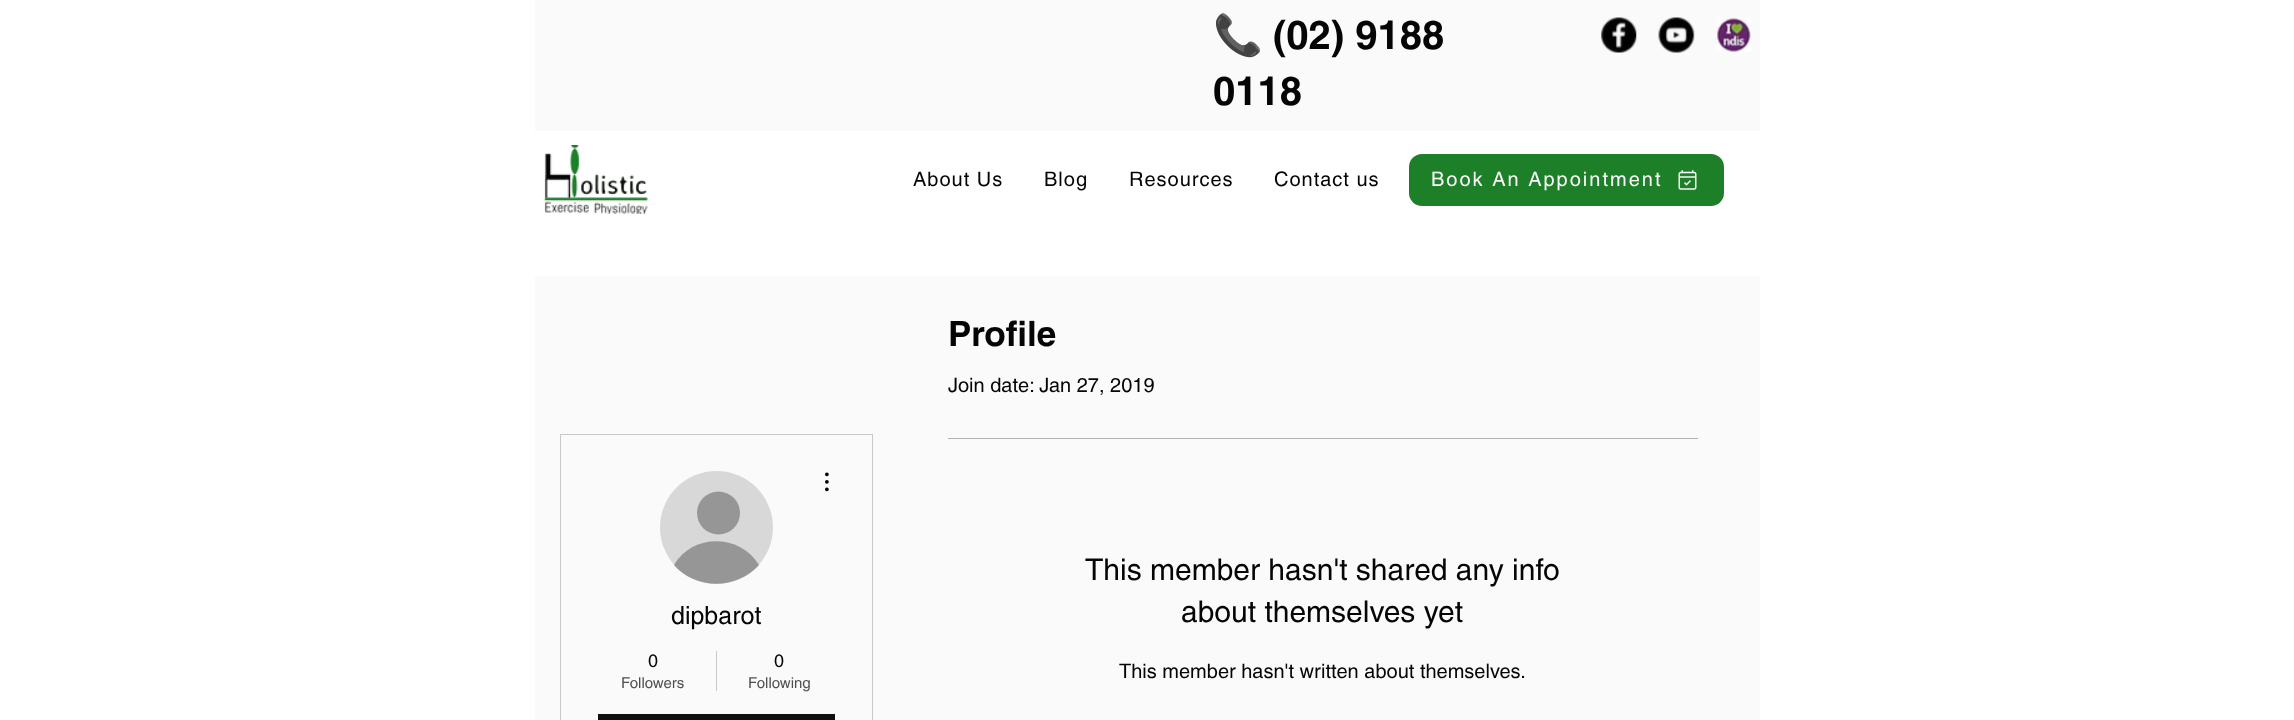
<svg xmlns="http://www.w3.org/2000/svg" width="2294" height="720">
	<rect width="100%" height="100%" fill="#FFFFFF" />
	<rect x="535" y="0" width="1225" height="131" fill="#FAFAFA" />
	<text x="1213" y="49" font-family="Noto Color Emoji" font-size="40" fill="#050505">📞</text>
	<g font-family="helvetica" font-size="40" font-weight="700" fill="#050505">
		<text x="1273" y="49">(02) 9188</text>
		<text x="1213" y="105">0118</text>
	</g>
	<image x="1601" y="17" width="36" height="36" href="assets/img1.png" />
	<image x="1658" y="17" width="37" height="36" href="assets/img2.png" />
	<image x="1716" y="17" width="35" height="35" href="assets/img3.png" />
	<image x="543" y="145" width="105" height="69" href="assets/img4.png" />
	<g font-family="helvetica" font-size="20" letter-spacing="1" fill="#050505">
		<text x="913" y="186">About Us</text>
		<text x="1044" y="186">Blog</text>
		<text x="1129" y="186">Resources</text>
		<text x="1274" y="186">Contact us</text>
	</g>
	<rect x="1409" y="154" width="315" height="52" rx="13" fill="#1D7F27" />
	<text x="1431" y="186" font-family="helvetica" font-size="20" letter-spacing="2" fill="#FAFAFA">Book An Appointment</text>
	<image x="1678" y="170" width="19" height="20" href="assets/img5.png" />
	<rect x="535" y="276" width="1225" height="444" fill="#FAFAFA" />
	<rect x="560.5" y="434.5" width="312" height="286" fill="none" stroke="#C9C9C9" />
	<circle cx="716.5" cy="527.5" r="56.5" fill="#D8D8D8" />
	<circle cx="718.5" cy="513" r="21.5" fill="#969696" />
	<path d="M759 565C736 590 696 590 674 565C693 533 740 534 759 565Z" fill="#969696" />
	<image x="825" y="472" width="4" height="20" href="assets/img6.png" />
	<text x="671" y="624" font-family="helvetica" font-size="25" fill="#050505">dipbarot</text>
	<text x="648" y="667" font-family="helvetica" font-size="18" fill="#050505">0</text>
	<text x="621" y="688" font-family="helvetica" font-size="15" fill="#4F4F4F">Followers</text>
	<rect x="716" y="651" width="1" height="40" fill="#C9C9C9" />
	<text x="774" y="667" font-family="helvetica" font-size="18" fill="#050505">0</text>
	<text x="748" y="688" font-family="helvetica" font-size="15" fill="#4F4F4F">Following</text>
	<rect x="598" y="714" width="237" height="6" fill="#0E110E" />
	<text x="948" y="346" font-family="helvetica" font-size="35" font-weight="700" fill="#050505">Profile</text>
	<text x="948" y="392" font-family="helvetica" font-size="20" fill="#050505">Join date: Jan 27, 2019</text>
	<rect x="948" y="438" width="750" height="1" fill="#B1B1B1" />
	<g font-family="helvetica" font-size="30" fill="#050505">
		<text x="1085" y="580">This member hasn't shared any info</text>
		<text x="1181" y="622">about themselves yet</text>
	</g>
	<text x="1119" y="678" font-family="helvetica" font-size="20" fill="#050505">This member hasn't written about themselves.</text>
</svg>
